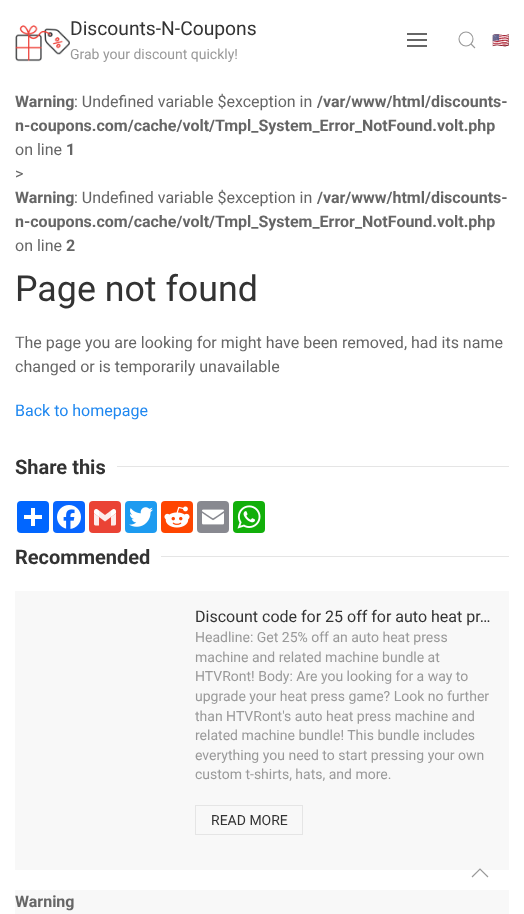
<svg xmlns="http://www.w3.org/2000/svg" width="524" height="914">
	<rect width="100%" height="100%" fill="#FFFFFF" />
	<image x="15" y="25" width="55" height="37" href="assets/img1.png" />
	<text x="70" y="35" font-family="Roboto" font-size="19.25" fill="#333333">Discounts-N-Coupons</text>
	<text x="70" y="59" font-family="Roboto" font-size="14" fill="#999999">Grab your discount quickly!</text>
	<rect x="407" y="33" width="20" height="2" fill="#666666" />
	<rect x="407" y="39" width="20" height="2" fill="#666666" />
	<rect x="407" y="45" width="20" height="2" fill="#666666" />
	<circle cx="466" cy="39" r="7" fill="none" stroke="#999999" stroke-width="1.1" />
	<path d="M471 44L475 48Z" fill="none" stroke="#999999" stroke-width="1.1" />
	<text x="492" y="45" font-family="Noto Color Emoji" font-size="14" fill="#333333">🇺🇸</text>
	<text x="15" y="107" font-family="Roboto" font-size="16" font-weight="700" fill="#666666">Warning</text>
	<text x="74" y="107" font-family="Roboto" font-size="16" fill="#666666">: Undefined variable $exception in</text>
	<g font-family="Roboto" font-size="16" font-weight="700" fill="#666666">
		<text x="317" y="107">/var/www/html/discounts-</text>
		<text x="15" y="131">n-coupons.com/cache/volt/Tmpl_System_Error_NotFound.volt.php</text>
	</g>
	<text x="15" y="155" font-family="Roboto" font-size="16" fill="#666666">on line</text>
	<text x="66" y="155" font-family="Roboto" font-size="16" font-weight="700" fill="#666666">1</text>
	<text x="15" y="179" font-family="Roboto" font-size="16" fill="#666666">&gt;</text>
	<text x="15" y="203" font-family="Roboto" font-size="16" font-weight="700" fill="#666666">Warning</text>
	<text x="74" y="203" font-family="Roboto" font-size="16" fill="#666666">: Undefined variable $exception in</text>
	<g font-family="Roboto" font-size="16" font-weight="700" fill="#666666">
		<text x="317" y="203">/var/www/html/discounts-</text>
		<text x="15" y="227">n-coupons.com/cache/volt/Tmpl_System_Error_NotFound.volt.php</text>
	</g>
	<text x="15" y="251" font-family="Roboto" font-size="16" fill="#666666">on line</text>
	<text x="66" y="251" font-family="Roboto" font-size="16" font-weight="700" fill="#666666">2</text>
	<text x="15" y="301" font-family="Roboto" font-size="35.75" fill="#333333">Page not found</text>
	<g font-family="Roboto" font-size="16" fill="#666666">
		<text x="15" y="348">The page you are looking for might have been removed, had its name</text>
		<text x="15" y="372">changed or is temporarily unavailable</text>
	</g>
	<text x="15" y="416" font-family="Roboto" font-size="16" fill="#1E87F0">Back to homepage</text>
	<text x="15" y="474" font-family="Roboto" font-size="20" font-weight="700" fill="#333333">Share this</text>
	<rect x="117" y="466" width="392" height="1" fill="#E5E5E5" />
	<rect x="17" y="501" width="32" height="32" rx="4" fill="#0166FF" />
	<rect x="31" y="508" width="4" height="18" fill="#FFFFFF" />
	<rect x="24" y="515" width="18" height="4" fill="#FFFFFF" />
	<rect x="53" y="501" width="32" height="32" rx="4" fill="#0866FF" />
	<image x="57" y="505" width="24" height="24" href="assets/img2.png" />
	<rect x="89" y="501" width="32" height="32" rx="4" fill="#EA4335" />
	<image x="94" y="509" width="22" height="17" href="assets/img3.png" />
	<rect x="125" y="501" width="32" height="32" rx="4" fill="#1D9BF0" />
	<image x="129" y="507" width="24" height="20" href="assets/img4.png" />
	<rect x="161" y="501" width="32" height="32" rx="4" fill="#FF4500" />
	<image x="164" y="506" width="26" height="22" href="assets/img5.png" />
	<rect x="197" y="501" width="32" height="32" rx="4" fill="#888990" />
	<image x="202" y="509" width="22" height="16" href="assets/img6.png" />
	<rect x="233" y="501" width="32" height="32" rx="4" fill="#12AF0A" />
	<image x="237" y="505" width="24" height="24" href="assets/img7.png" />
	<text x="15" y="564" font-family="Roboto" font-size="20" font-weight="700" fill="#333333">Recommended</text>
	<rect x="161" y="556" width="348" height="1" fill="#E5E5E5" />
	<rect x="15" y="591" width="494" height="279" fill="#F8F8F8" />
	<text x="195" y="622" font-family="Roboto" font-size="16" fill="#333333">Discount code for 25 off for auto heat pr…</text>
	<g font-family="Roboto" font-size="14" fill="#999999">
		<text x="195" y="642">Headline: Get 25% off an auto heat press</text>
		<text x="195" y="662">machine and related machine bundle at</text>
		<text x="195" y="681">HTVRont! Body: Are you looking for a way to</text>
		<text x="195" y="701">upgrade your heat press game? Look no further</text>
		<text x="195" y="721">than HTVRont's auto heat press machine and</text>
		<text x="195" y="740">related machine bundle! This bundle includes</text>
		<text x="195" y="760">everything you need to start pressing your own</text>
		<text x="195" y="779">custom t-shirts, hats, and more.</text>
	</g>
	<rect x="195.5" y="805.5" width="107" height="29" fill="none" stroke="#E5E5E5" />
	<text x="211" y="825" font-family="Roboto" font-size="14" fill="#333333">READ MORE</text>
	<rect x="15" y="890" width="494" height="24" fill="#F8F8F8" />
	<text x="15" y="907" font-family="Roboto" font-size="16" font-weight="700" fill="#666666">Warning</text>
	<path d="M472 877L480 869L488 877" fill="none" stroke="#999999" stroke-width="1.2" />
</svg>
